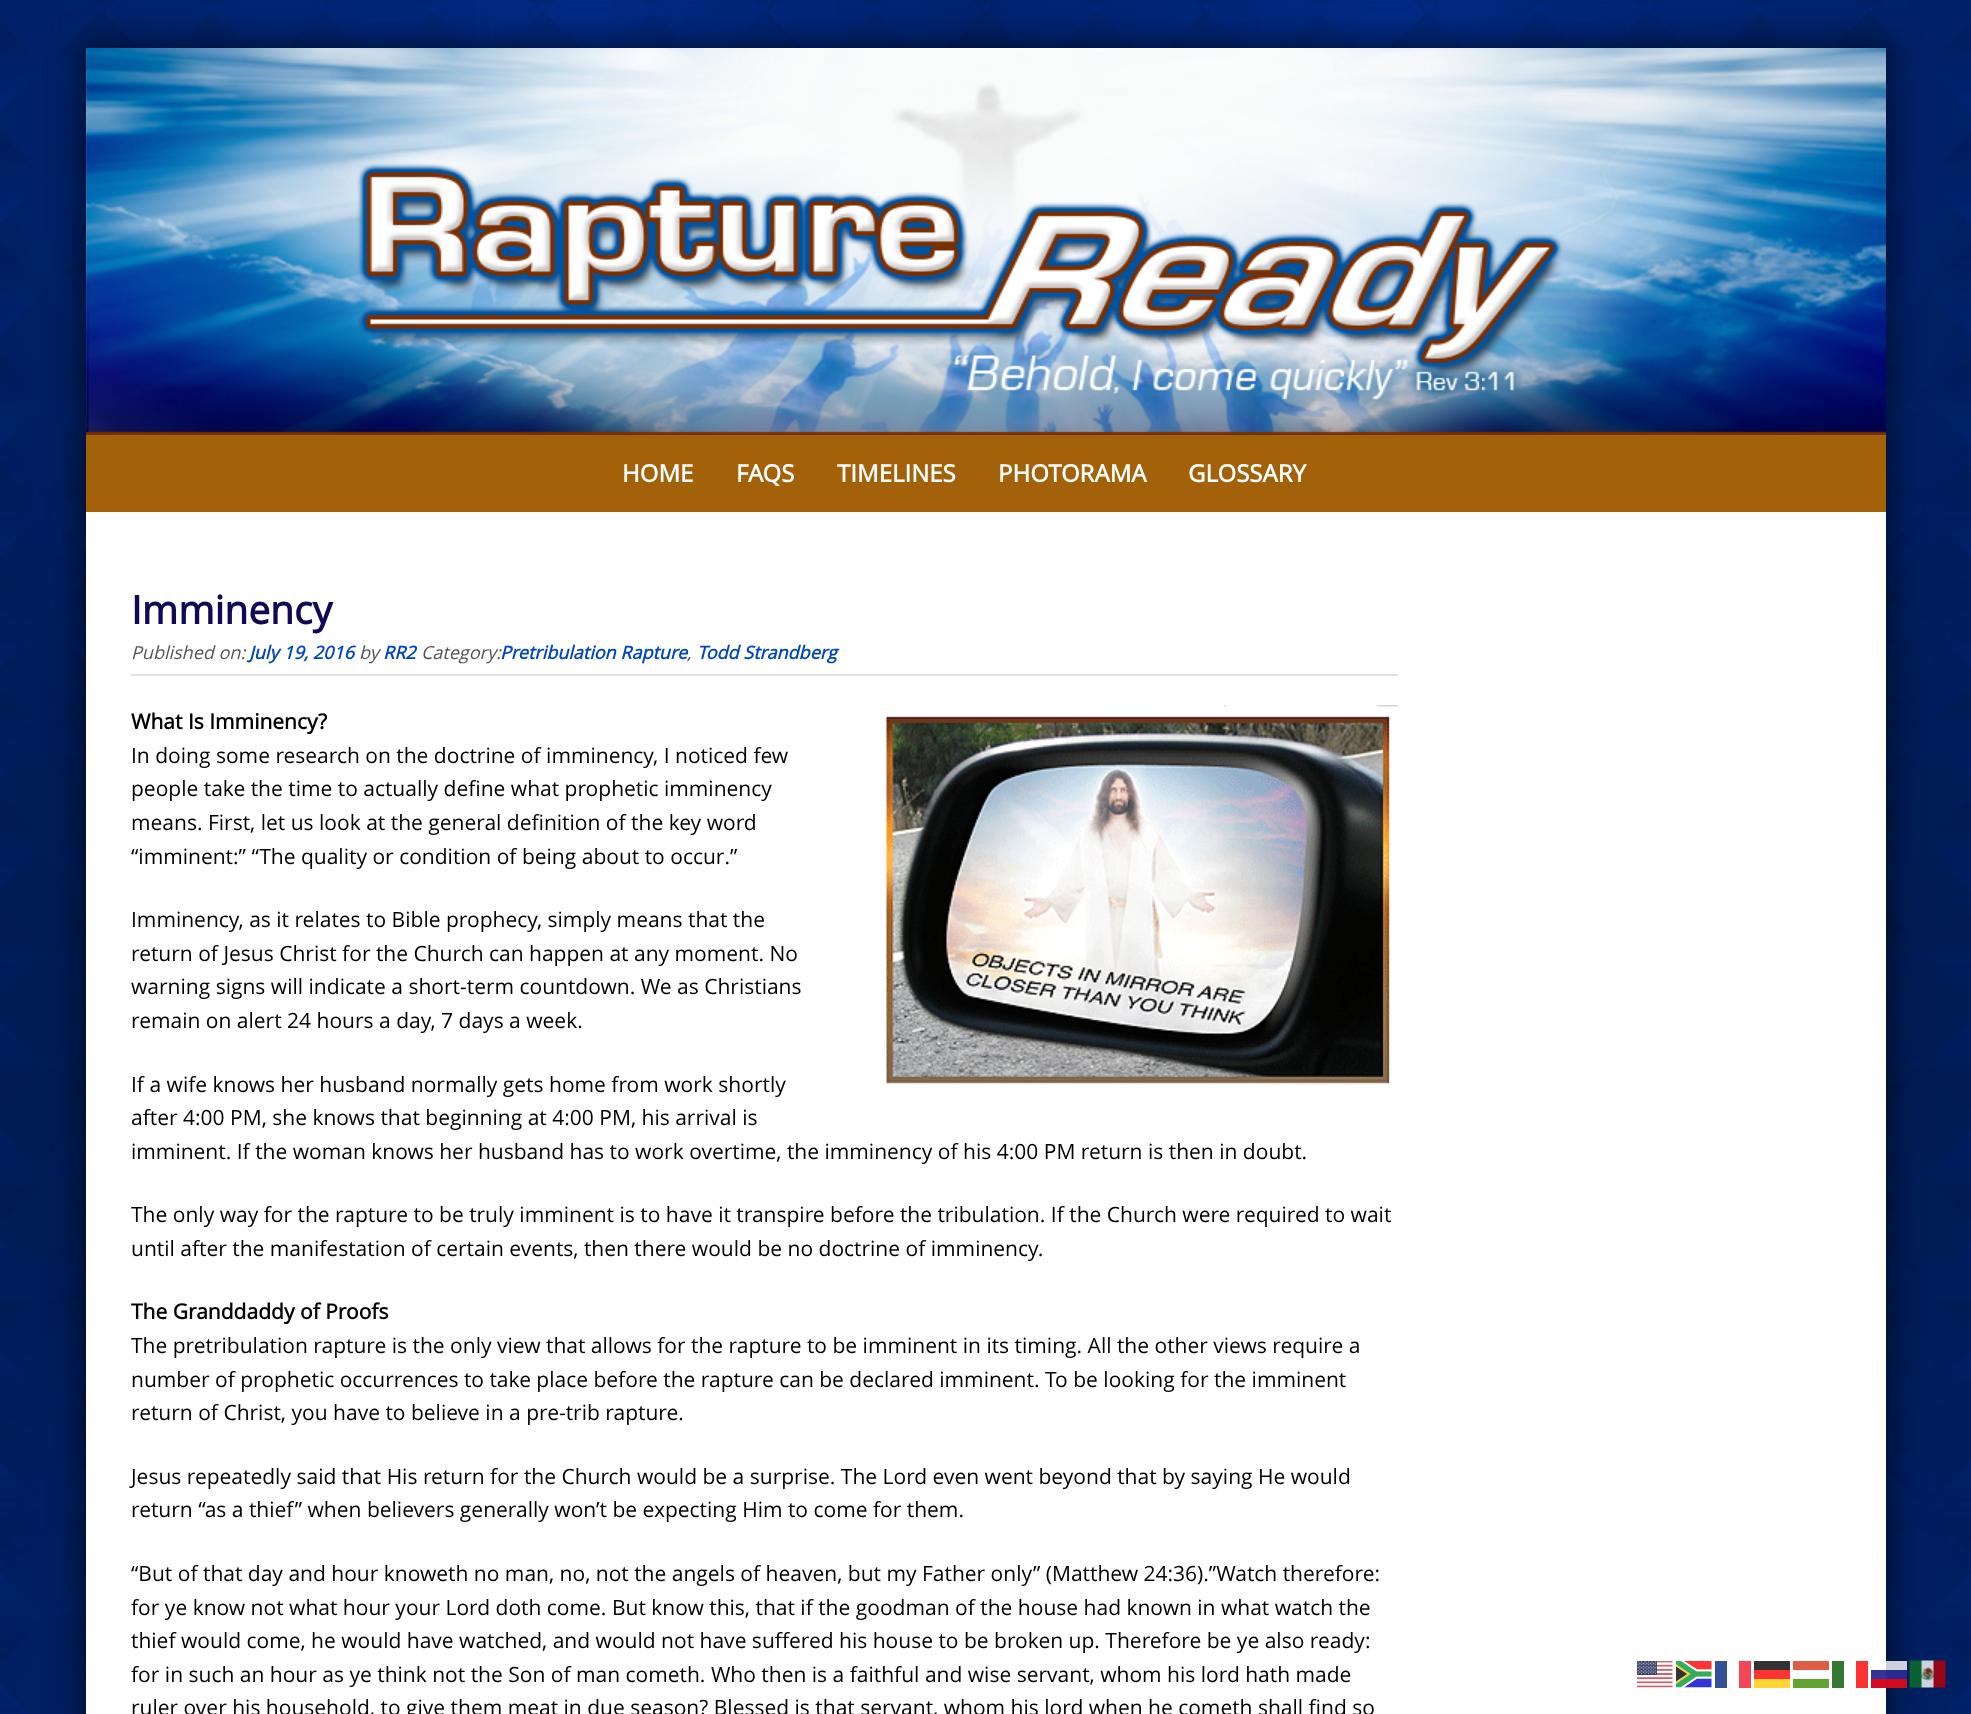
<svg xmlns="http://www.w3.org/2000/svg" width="1971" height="1714">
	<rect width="100%" height="100%" fill="#FFFFFF" />
	<image x="0" y="0" width="1971" height="1714" href="assets/img1.png" />
	<rect x="78" y="41" width="1815" height="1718" fill="#000000" fill-opacity="0.5" filter="blur(15px)" />
	<image x="86" y="48" width="1800" height="387" href="assets/img2.png" />
	<rect x="86" y="435" width="1800" height="77" fill="#A3620A" />
	<g font-family="Open Sans" font-size="24" font-weight="700" fill="#FFFFFF">
		<text x="622" y="482">HOME</text>
		<text x="736" y="482">FAQS</text>
		<text x="837" y="482">TIMELINES</text>
		<text x="998" y="482">PHOTORAMA</text>
		<text x="1188" y="482">GLOSSARY</text>
	</g>
	<rect x="86" y="512" width="1800" height="1202" fill="#FFFFFF" />
	<rect x="131" y="674" width="1267" height="2" fill="#E0E0E0" />
	<text x="131" y="624" font-family="Open Sans" font-size="39" font-weight="700" fill="#100954">Imminency</text>
	<text x="131" y="659" font-family="Open Sans" font-size="18" font-style="italic" fill="#545454">Published on:</text>
	<text x="249" y="659" font-family="Open Sans" font-size="18" font-weight="700" font-style="italic" fill="#0346BA">July 19, 2016</text>
	<text x="359" y="659" font-family="Open Sans" font-size="18" font-style="italic" fill="#545454">by</text>
	<text x="383" y="659" font-family="Open Sans" font-size="18" font-weight="700" font-style="italic" fill="#0346BA">RR2</text>
	<text x="421" y="659" font-family="Open Sans" font-size="18" font-style="italic" fill="#545454">Category:</text>
	<text x="500" y="659" font-family="Open Sans" font-size="18" font-weight="700" font-style="italic" fill="#0346BA">Pretribulation Rapture</text>
	<text x="687" y="659" font-family="Open Sans" font-size="18" font-style="italic" fill="#545454">,</text>
	<text x="697" y="659" font-family="Open Sans" font-size="18" font-weight="700" font-style="italic" fill="#0346BA">Todd Strandberg</text>
	<text x="131" y="729" font-family="Open Sans" font-size="21" font-weight="700" fill="#000000">What Is Imminency?</text>
	<image x="886" y="705" width="512" height="379" href="assets/img3.png" />
	<g font-family="Open Sans" font-size="21" fill="#000000">
		<text x="131" y="763">In doing some research on the doctrine of imminency, I noticed few</text>
		<text x="131" y="796">people take the time to actually define what prophetic imminency</text>
		<text x="131" y="830">means. First, let us look at the general definition of the key word</text>
		<text x="131" y="864">“imminent:” “The quality or condition of being about to occur.”</text>
		<text x="131" y="927">Imminency, as it relates to Bible prophecy, simply means that the</text>
		<text x="131" y="961">return of Jesus Christ for the Church can happen at any moment. No</text>
		<text x="131" y="994">warning signs will indicate a short-term countdown. We as Christians</text>
		<text x="131" y="1028">remain on alert 24 hours a day, 7 days a week.</text>
		<text x="131" y="1092">If a wife knows her husband normally gets home from work shortly</text>
		<text x="131" y="1125">after 4:00 PM, she knows that beginning at 4:00 PM, his arrival is</text>
		<text x="131" y="1159">imminent. If the woman knows her husband has to work overtime, the imminency of his 4:00 PM return is then in doubt.</text>
		<text x="131" y="1222">The only way for the rapture to be truly imminent is to have it transpire before the tribulation. If the Church were required to wait</text>
		<text x="131" y="1256">until after the manifestation of certain events, then there would be no doctrine of imminency.</text>
	</g>
	<text x="131" y="1319" font-family="Open Sans" font-size="21" font-weight="700" fill="#000000">The Granddaddy of Proofs</text>
	<g font-family="Open Sans" font-size="21" fill="#000000">
		<text x="131" y="1353">The pretribulation rapture is the only view that allows for the rapture to be imminent in its timing. All the other views require a</text>
		<text x="131" y="1387">number of prophetic occurrences to take place before the rapture can be declared imminent. To be looking for the imminent</text>
		<text x="131" y="1420">return of Christ, you have to believe in a pre-trib rapture.</text>
		<text x="131" y="1484">Jesus repeatedly said that His return for the Church would be a surprise. The Lord even went beyond that by saying He would</text>
		<text x="131" y="1517">return “as a thief” when believers generally won’t be expecting Him to come for them.</text>
		<text x="131" y="1581">“But of that day and hour knoweth no man, no, not the angels of heaven, but my Father only” (Matthew 24:36).”Watch therefore:</text>
		<text x="131" y="1615">for ye know not what hour your Lord doth come. But know this, that if the goodman of the house had known in what watch the</text>
		<text x="131" y="1648">thief would come, he would have watched, and would not have suffered his house to be broken up. Therefore be ye also ready:</text>
		<text x="131" y="1682">for in such an hour as ye think not the Son of man cometh. Who then is a faithful and wise servant, whom his lord hath made</text>
		<text x="131" y="1715">ruler over his household, to give them meat in due season? Blessed is that servant, whom his lord when he cometh shall find so</text>
	</g>
	<image x="1637" y="1661" width="36" height="27" href="assets/img4.png" />
	<image x="1676" y="1661" width="36" height="27" href="assets/img5.png" />
	<rect x="1715" y="1661" width="12" height="27" fill="#335199" />
	<rect x="1739" y="1661" width="12" height="27" fill="#F54659" />
	<rect x="1754" y="1661" width="36" height="9" fill="#333333" />
	<rect x="1793" y="1661" width="36" height="9" fill="#DD5D45" />
	<rect x="1832" y="1661" width="12" height="27" fill="#337933" />
	<rect x="1856" y="1661" width="12" height="27" fill="#FD3333" />
	<rect x="1886" y="1661" width="21" height="27" fill="#FFFFFF" fill-opacity="0.8" />
	<image x="1909" y="1660" width="37" height="28" href="assets/img6.png" />
	<rect x="1754" y="1670" width="36" height="9" fill="#FF3333" />
	<rect x="1871" y="1670" width="36" height="18" fill="#01017E" fill-opacity="0.8" />
	<rect x="1754" y="1679" width="36" height="9" fill="#FFD633" />
	<rect x="1793" y="1679" width="36" height="9" fill="#60A433" />
	<rect x="1871" y="1679" width="36" height="9" fill="#FE0101" fill-opacity="0.8" />
</svg>
